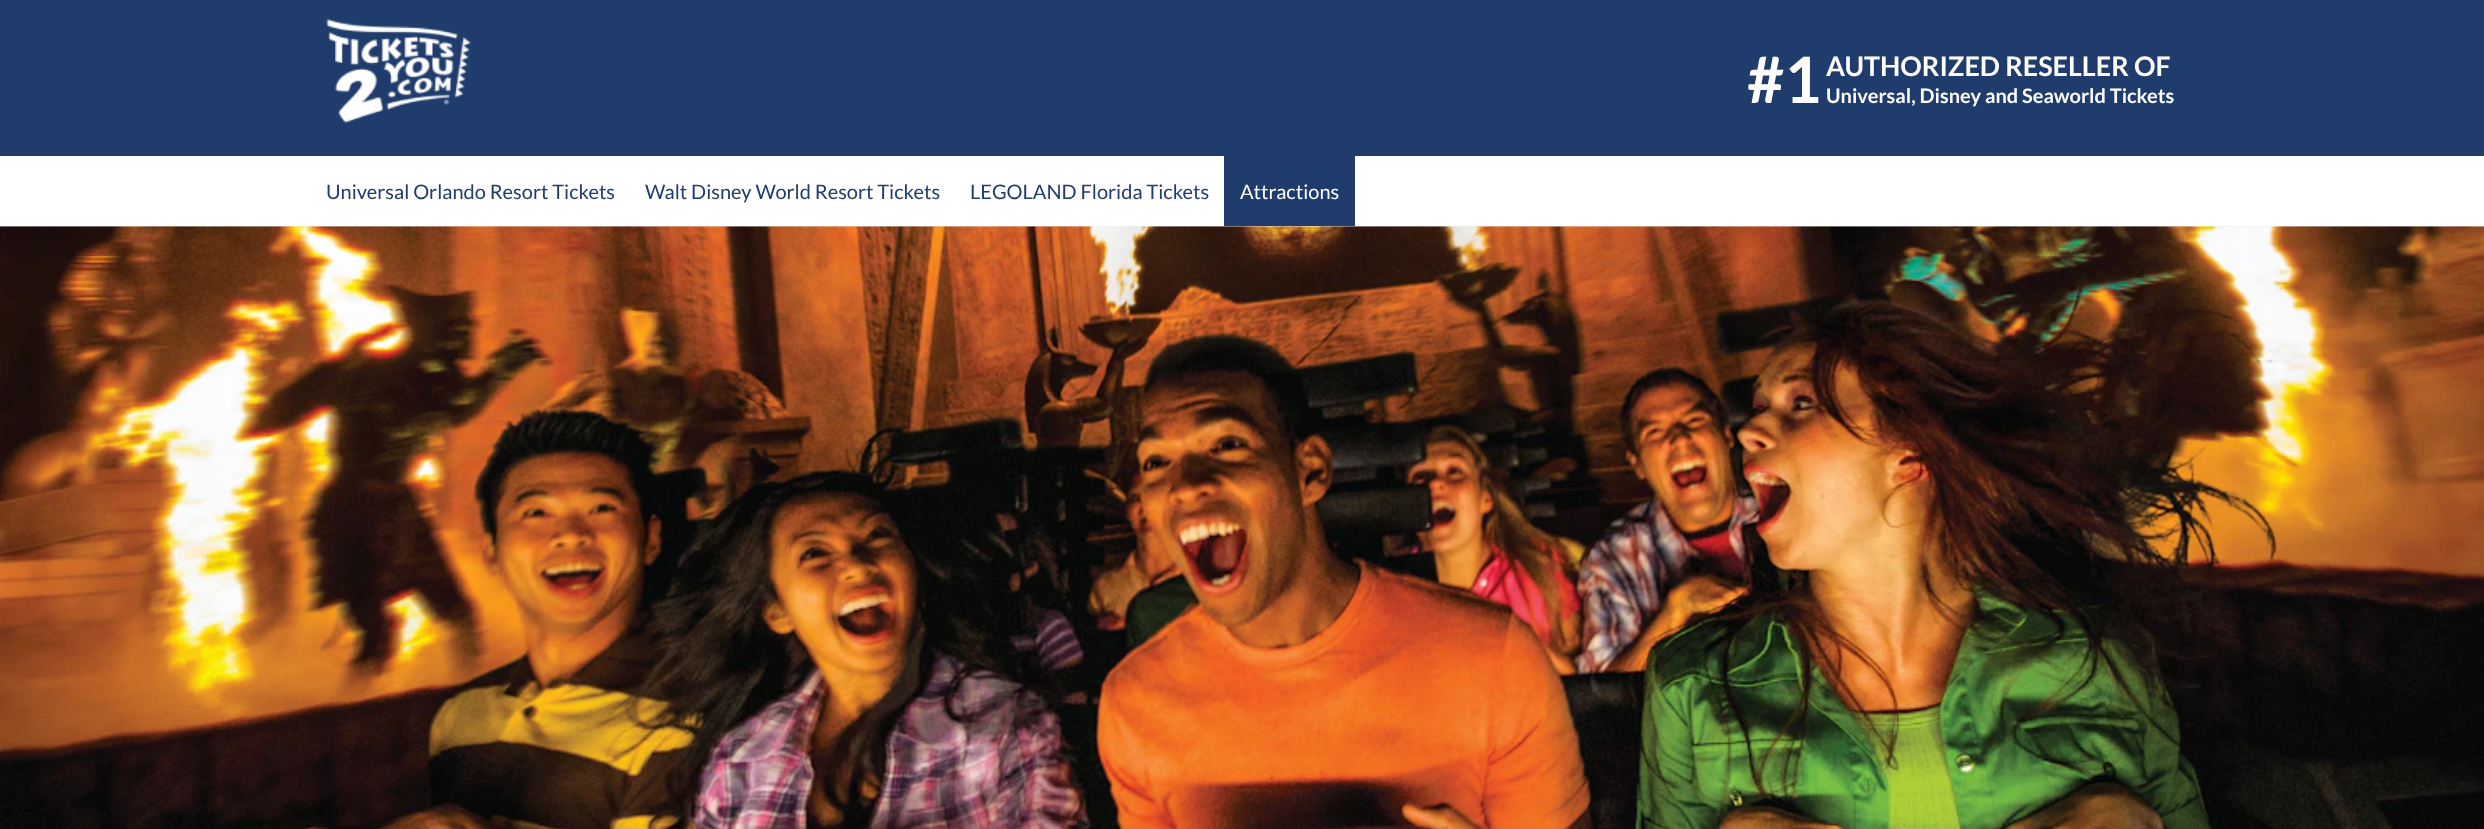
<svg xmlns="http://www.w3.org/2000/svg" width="2484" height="829">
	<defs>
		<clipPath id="clip1"><rect x="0" y="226" width="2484" height="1" /></clipPath>
	</defs>
	<rect width="100%" height="100%" fill="#FFFFFF" />
	<g clip-path="url(#clip1)">
		<rect x="0" y="1" width="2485" height="227" fill="#000000" fill-opacity="0.1" filter="blur(2px)" />
	</g>
	<rect x="0" y="0" width="2484" height="156" fill="#203C6C" />
	<image x="326" y="19" width="146" height="104" href="assets/img1.png" />
	<text x="1747" y="103" font-family="Lato" font-size="64" font-weight="700" fill="#FFFFFF">#1</text>
	<text x="1826" y="76" font-family="Lato" font-size="26.9" font-weight="700" fill="#FFFFFF">AUTHORIZED RESELLER OF</text>
	<text x="1826" y="103" font-family="Lato" font-size="20" font-weight="700" fill="#FFFFFF">Universal, Disney and Seaworld Tickets</text>
	<g font-family="Lato" font-size="20" fill="#203C6C">
		<text x="326" y="199">Universal Orlando Resort Tickets</text>
		<text x="645" y="199">Walt Disney World Resort Tickets</text>
		<text x="970" y="199">LEGOLAND Florida Tickets</text>
	</g>
	<rect x="1224" y="156" width="131" height="70" fill="#203C6C" />
	<text x="1240" y="199" font-family="Lato" font-size="20" fill="#FFFFFF">Attractions</text>
	<image x="0" y="226" width="2484" height="603" href="assets/img2.png" />
</svg>
